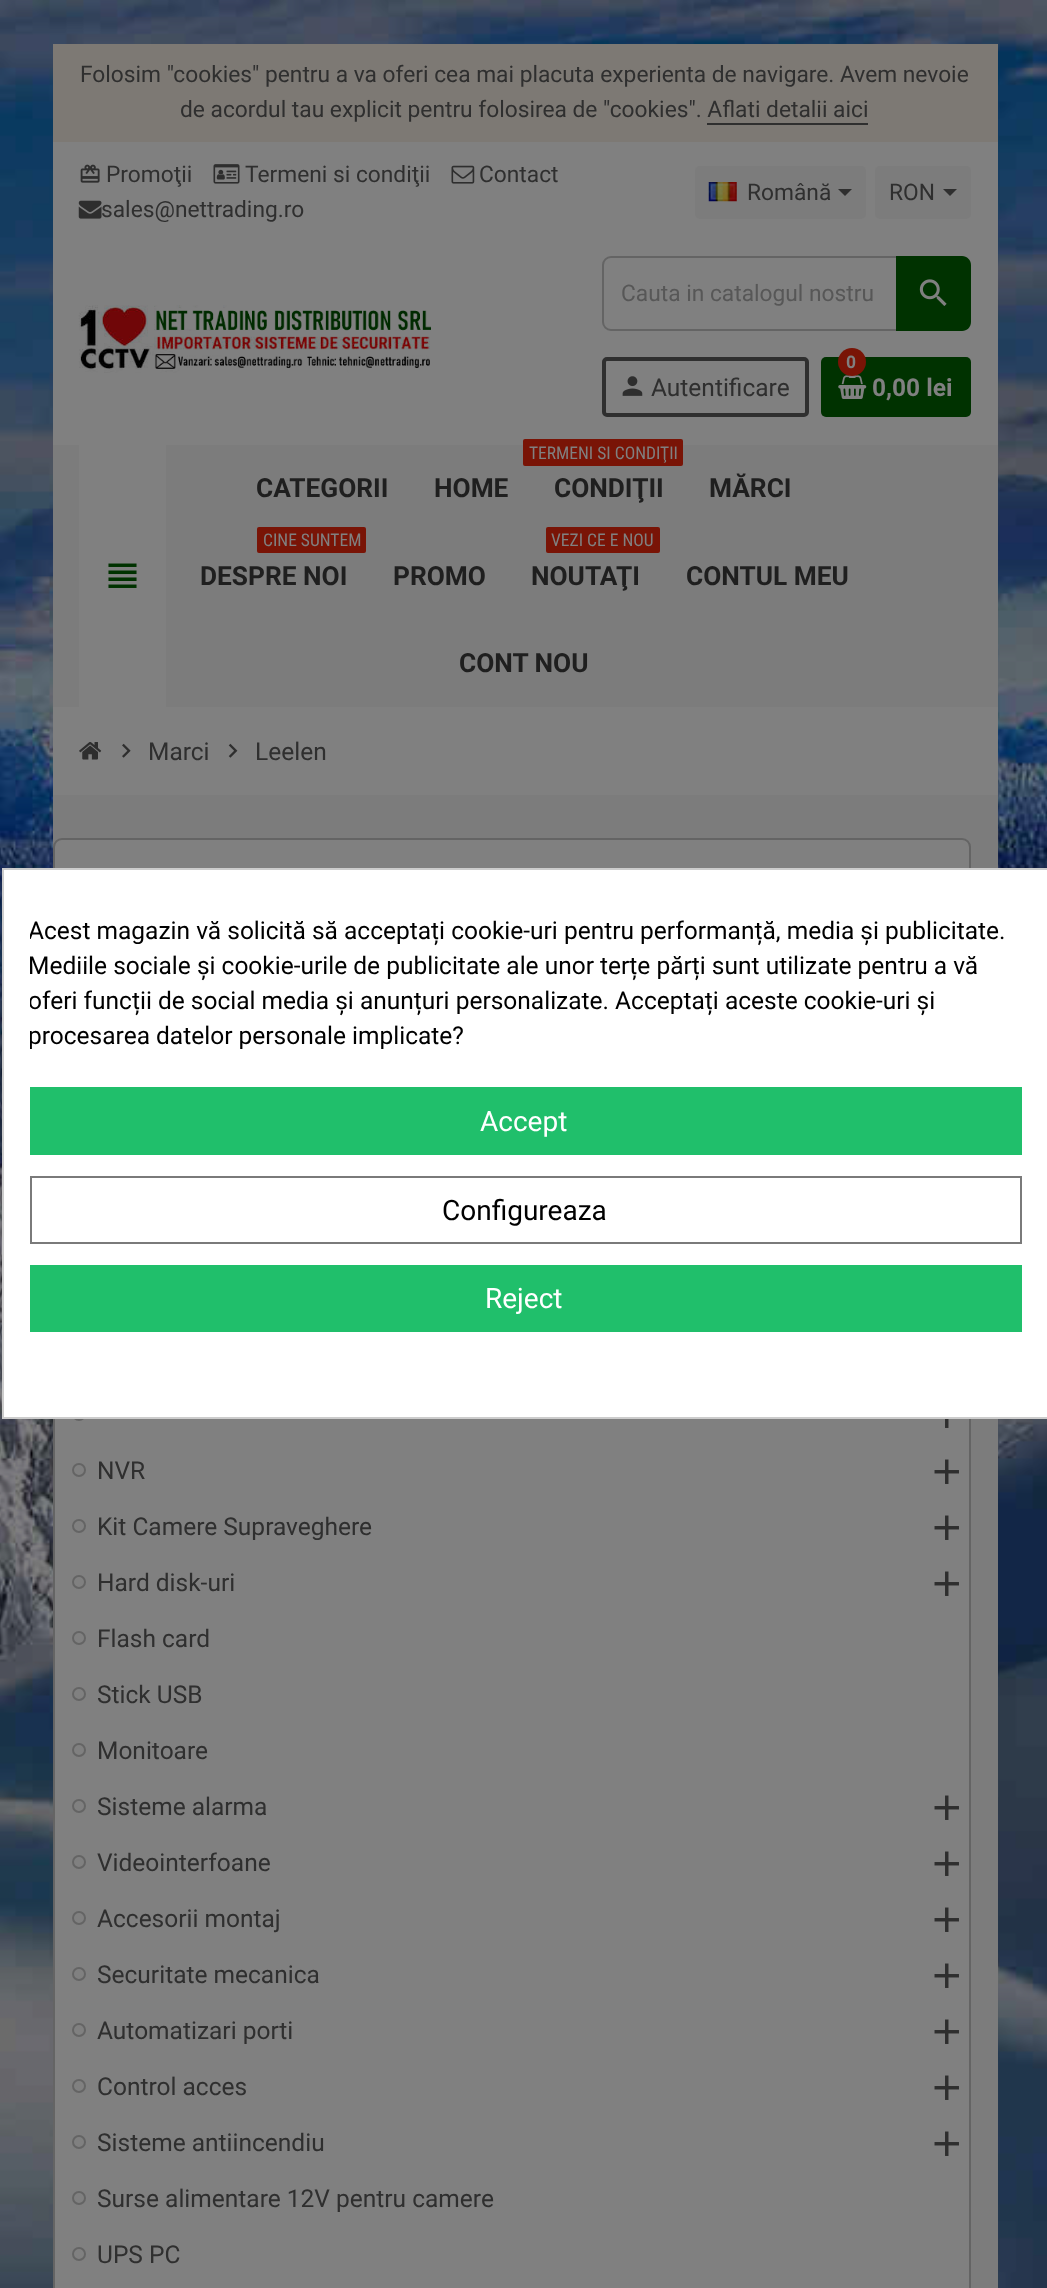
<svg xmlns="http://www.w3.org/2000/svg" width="1047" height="2288">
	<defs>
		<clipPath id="clip1"><rect x="30" y="912" width="992" height="140" /></clipPath>
	</defs>
	<rect width="100%" height="100%" fill="#FFFFFF" />
	<image x="0" y="0" width="1047" height="2288" href="assets/img1.png" />
	<rect x="53" y="142" width="945" height="303" fill="#808080" />
	<rect x="53" y="44" width="945" height="98" fill="#7D7974" />
	<g font-family="Roboto" font-size="22.75" fill="#2F2F2F">
		<text x="80" y="82">Folosim "cookies" pentru a va oferi cea mai placuta experienta de navigare. Avem nevoie</text>
		<text x="180" y="117">de acordul tau explicit pentru folosirea de "cookies". Aflati detalii aici</text>
	</g>
	<rect x="707" y="123" width="161" height="2" fill="#2F2F2F" />
	<image x="80" y="164" width="20" height="19" href="assets/img2.png" />
	<text x="106" y="182" font-family="Roboto" font-size="22.75" fill="#2F2F2F">Promoţii</text>
	<image x="213" y="164" width="27" height="20" href="assets/img3.png" />
	<text x="245" y="182" font-family="Roboto" font-size="22.75" fill="#2F2F2F">Termeni si condiţii</text>
	<image x="451" y="165" width="24" height="19" href="assets/img4.png" />
	<text x="479" y="182" font-family="Roboto" font-size="22.75" fill="#2F2F2F">Contact</text>
	<image x="78" y="200" width="24" height="19" href="assets/img5.png" />
	<text x="101" y="217" font-family="Roboto" font-size="22.75" fill="#2F2F2F">sales@nettrading.ro</text>
	<rect x="695" y="166" width="171" height="53" rx="5" fill="#7C7C7C" />
	<image x="708" y="182" width="29" height="20" href="assets/img6.png" />
	<text x="747" y="200" font-family="Roboto" font-size="22.75" fill="#2F2F2F">Română</text>
	<path d="M838 189H852L845 196Z" fill="#2F2F2F" />
	<rect x="875" y="166" width="96" height="53" rx="5" fill="#7C7C7C" />
	<text x="889" y="200" font-family="Roboto" font-size="22.75" fill="#2F2F2F">RON</text>
	<path d="M943 189H957L950 196Z" fill="#2F2F2F" />
	<image x="78" y="305" width="353" height="68" href="assets/img7.png" />
	<rect x="603" y="257" width="366" height="73" rx="8" fill="none" stroke="#646464" stroke-width="2" />
	<text x="621" y="301" font-family="Roboto" font-size="22.75" fill="#575757">Cauta in catalogul nostru</text>
	<path d="M896 256H962C967 256 971 260 971 265V322C971 327 967 331 962 331H896Z" fill="#003200" />
	<image x="919" y="279" width="28" height="27" href="assets/img8.png" />
	<rect x="604" y="359" width="203" height="56" rx="3" fill="none" stroke="#2F2F2F" stroke-width="4" />
	<image x="622" y="376" width="21" height="20" href="assets/img9.png" />
	<text x="651" y="396" font-family="Roboto" font-size="24.5" fill="#2F2F2F">Autentificare</text>
	<rect x="821" y="357" width="150" height="60" rx="5" fill="#003200" />
	<image x="838" y="375" width="29" height="24" href="assets/img10.png" />
	<circle cx="852" cy="362" r="14" fill="#791406" />
	<text x="846" y="368" font-family="Roboto" font-size="17.5" font-weight="700" fill="#808080">0</text>
	<text x="872" y="396" font-family="Roboto" font-size="24.5" font-weight="700" fill="#808080">0,00 lei</text>
	<rect x="53" y="445" width="945" height="262" fill="#7C7C7C" />
	<rect x="79" y="445" width="87" height="262" fill="#808080" />
	<image x="108" y="563" width="29" height="25" href="assets/img11.png" />
	<g font-family="'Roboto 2'" font-size="26.25" font-weight="700" fill="#1F1F1F">
		<text x="256" y="497">CATEGORII</text>
		<text x="434" y="497">HOME</text>
	</g>
	<rect x="523" y="439" width="160" height="27" rx="2" fill="#791406" />
	<text x="529" y="459" font-family="Roboto Condensed" font-size="17.5" fill="#808080">TERMENI SI CONDIŢII</text>
	<g font-family="'Roboto 2'" font-size="26.25" font-weight="700" fill="#1F1F1F">
		<text x="554" y="497">CONDIŢII</text>
		<text x="709" y="497">MĂRCI</text>
	</g>
	<rect x="257" y="527" width="109" height="26" rx="2" fill="#791406" />
	<text x="263" y="546" font-family="Roboto Condensed" font-size="17.5" fill="#808080">CINE SUNTEM</text>
	<g font-family="'Roboto 2'" font-size="26.25" font-weight="700" fill="#1F1F1F">
		<text x="200" y="585">DESPRE NOI</text>
		<text x="393" y="585">PROMO</text>
	</g>
	<rect x="546" y="527" width="114" height="26" rx="2" fill="#791406" />
	<text x="551" y="546" font-family="Roboto Condensed" font-size="17.5" fill="#808080">VEZI CE E NOU</text>
	<g font-family="'Roboto 2'" font-size="26.25" font-weight="700" fill="#1F1F1F">
		<text x="531" y="585">NOUTAŢI</text>
		<text x="686" y="585">CONTUL MEU</text>
		<text x="459" y="672">CONT NOU</text>
	</g>
	<rect x="53" y="795" width="945" height="1493" fill="#7C7C7C" />
	<rect x="53" y="707" width="945" height="88" fill="#808080" />
	<image x="79" y="742" width="23" height="18" href="assets/img12.png" />
	<image x="122" y="743" width="9" height="15" href="assets/img13.png" />
	<text x="148" y="760" font-family="Roboto" font-size="24.5" fill="#2F2F2F">Marci</text>
	<image x="228" y="743" width="10" height="15" href="assets/img14.png" />
	<text x="255" y="760" font-family="Roboto" font-size="24.5" fill="#2F2F2F">Leelen</text>
	<rect x="54" y="839" width="916" height="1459" rx="8" fill="#808080" stroke="#646464" stroke-width="2" />
	<circle cx="79" cy="1414" r="6" fill="none" stroke="#646464" stroke-width="2" />
	<image x="945" y="1419" width="4" height="9" href="assets/img15.png" />
	<circle cx="79" cy="1470" r="6" fill="none" stroke="#646464" stroke-width="2" />
	<text x="97" y="1479" font-family="Roboto" font-size="24.5" fill="#2F2F2F">NVR</text>
	<image x="934" y="1459" width="25" height="25" href="assets/img16.png" />
	<circle cx="79" cy="1526" r="6" fill="none" stroke="#646464" stroke-width="2" />
	<text x="97" y="1535" font-family="Roboto" font-size="24.5" fill="#2F2F2F">Kit Camere Supraveghere</text>
	<image x="934" y="1515" width="25" height="25" href="assets/img16.png" />
	<circle cx="79" cy="1582" r="6" fill="none" stroke="#646464" stroke-width="2" />
	<text x="97" y="1591" font-family="Roboto" font-size="24.5" fill="#2F2F2F">Hard disk-uri</text>
	<image x="934" y="1571" width="25" height="25" href="assets/img16.png" />
	<circle cx="79" cy="1638" r="6" fill="none" stroke="#646464" stroke-width="2" />
	<text x="97" y="1647" font-family="Roboto" font-size="24.5" fill="#2F2F2F">Flash card</text>
	<circle cx="79" cy="1694" r="6" fill="none" stroke="#646464" stroke-width="2" />
	<text x="97" y="1703" font-family="Roboto" font-size="24.5" fill="#2F2F2F">Stick USB</text>
	<circle cx="79" cy="1750" r="6" fill="none" stroke="#646464" stroke-width="2" />
	<text x="97" y="1759" font-family="Roboto" font-size="24.5" fill="#2F2F2F">Monitoare</text>
	<circle cx="79" cy="1806" r="6" fill="none" stroke="#646464" stroke-width="2" />
	<text x="97" y="1815" font-family="Roboto" font-size="24.5" fill="#2F2F2F">Sisteme alarma</text>
	<image x="934" y="1795" width="25" height="25" href="assets/img16.png" />
	<circle cx="79" cy="1862" r="6" fill="none" stroke="#646464" stroke-width="2" />
	<text x="97" y="1871" font-family="Roboto" font-size="24.5" fill="#2F2F2F">Videointerfoane</text>
	<image x="934" y="1851" width="25" height="25" href="assets/img16.png" />
	<circle cx="79" cy="1918" r="6" fill="none" stroke="#646464" stroke-width="2" />
	<text x="97" y="1927" font-family="Roboto" font-size="24.5" fill="#2F2F2F">Accesorii montaj</text>
	<image x="934" y="1907" width="25" height="25" href="assets/img16.png" />
	<circle cx="79" cy="1974" r="6" fill="none" stroke="#646464" stroke-width="2" />
	<text x="97" y="1983" font-family="Roboto" font-size="24.5" fill="#2F2F2F">Securitate mecanica</text>
	<image x="934" y="1963" width="25" height="25" href="assets/img16.png" />
	<circle cx="79" cy="2030" r="6" fill="none" stroke="#646464" stroke-width="2" />
	<text x="97" y="2039" font-family="Roboto" font-size="24.5" fill="#2F2F2F">Automatizari porti</text>
	<image x="934" y="2019" width="25" height="25" href="assets/img16.png" />
	<circle cx="79" cy="2086" r="6" fill="none" stroke="#646464" stroke-width="2" />
	<text x="97" y="2095" font-family="Roboto" font-size="24.5" fill="#2F2F2F">Control acces</text>
	<image x="934" y="2075" width="25" height="25" href="assets/img16.png" />
	<circle cx="79" cy="2142" r="6" fill="none" stroke="#646464" stroke-width="2" />
	<text x="97" y="2151" font-family="Roboto" font-size="24.5" fill="#2F2F2F">Sisteme antiincendiu</text>
	<image x="934" y="2131" width="25" height="25" href="assets/img16.png" />
	<circle cx="79" cy="2198" r="6" fill="none" stroke="#646464" stroke-width="2" />
	<text x="97" y="2207" font-family="Roboto" font-size="24.5" fill="#2F2F2F">Surse alimentare 12V pentru camere</text>
	<circle cx="79" cy="2254" r="6" fill="none" stroke="#646464" stroke-width="2" />
	<text x="97" y="2263" font-family="Roboto" font-size="24.5" fill="#2F2F2F">UPS PC</text>
	<rect x="3" y="869" width="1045" height="549" fill="#FFFFFF" stroke="#CCCCCC" stroke-width="2" />
	<g clip-path="url(#clip1)">
		<text x="28" y="939" font-family="Roboto" font-size="24.5" fill="#000000">Acest magazin vă solicită să acceptați cookie-uri pentru performanță, media și publicitate.</text>
	</g>
	<text x="28" y="974" font-family="Roboto" font-size="24.5" fill="#000000">Mediile sociale și cookie-urile de publicitate ale unor terțe părți sunt utilizate pentru a vă</text>
	<g clip-path="url(#clip1)">
		<g font-family="Roboto" font-size="24.5" fill="#000000">
			<text x="28" y="1009">oferi funcții de social media și anunțuri personalizate. Acceptați aceste cookie-uri și</text>
			<text x="28" y="1044">procesarea datelor personale implicate?</text>
		</g>
	</g>
	<rect x="30" y="1087" width="992" height="68" fill="#20BF6B" />
	<text x="480" y="1131" font-family="Roboto" font-size="28" fill="#FFFFFF">Accept</text>
	<rect x="31" y="1177" width="990" height="66" fill="none" stroke="#7A7A7A" stroke-width="2" />
	<text x="442" y="1220" font-family="Roboto" font-size="28" fill="#000000">Configureaza</text>
	<rect x="30" y="1265" width="992" height="67" fill="#20BF6B" />
	<text x="485" y="1308" font-family="Roboto" font-size="28" fill="#FFFFFF">Reject</text>
</svg>
